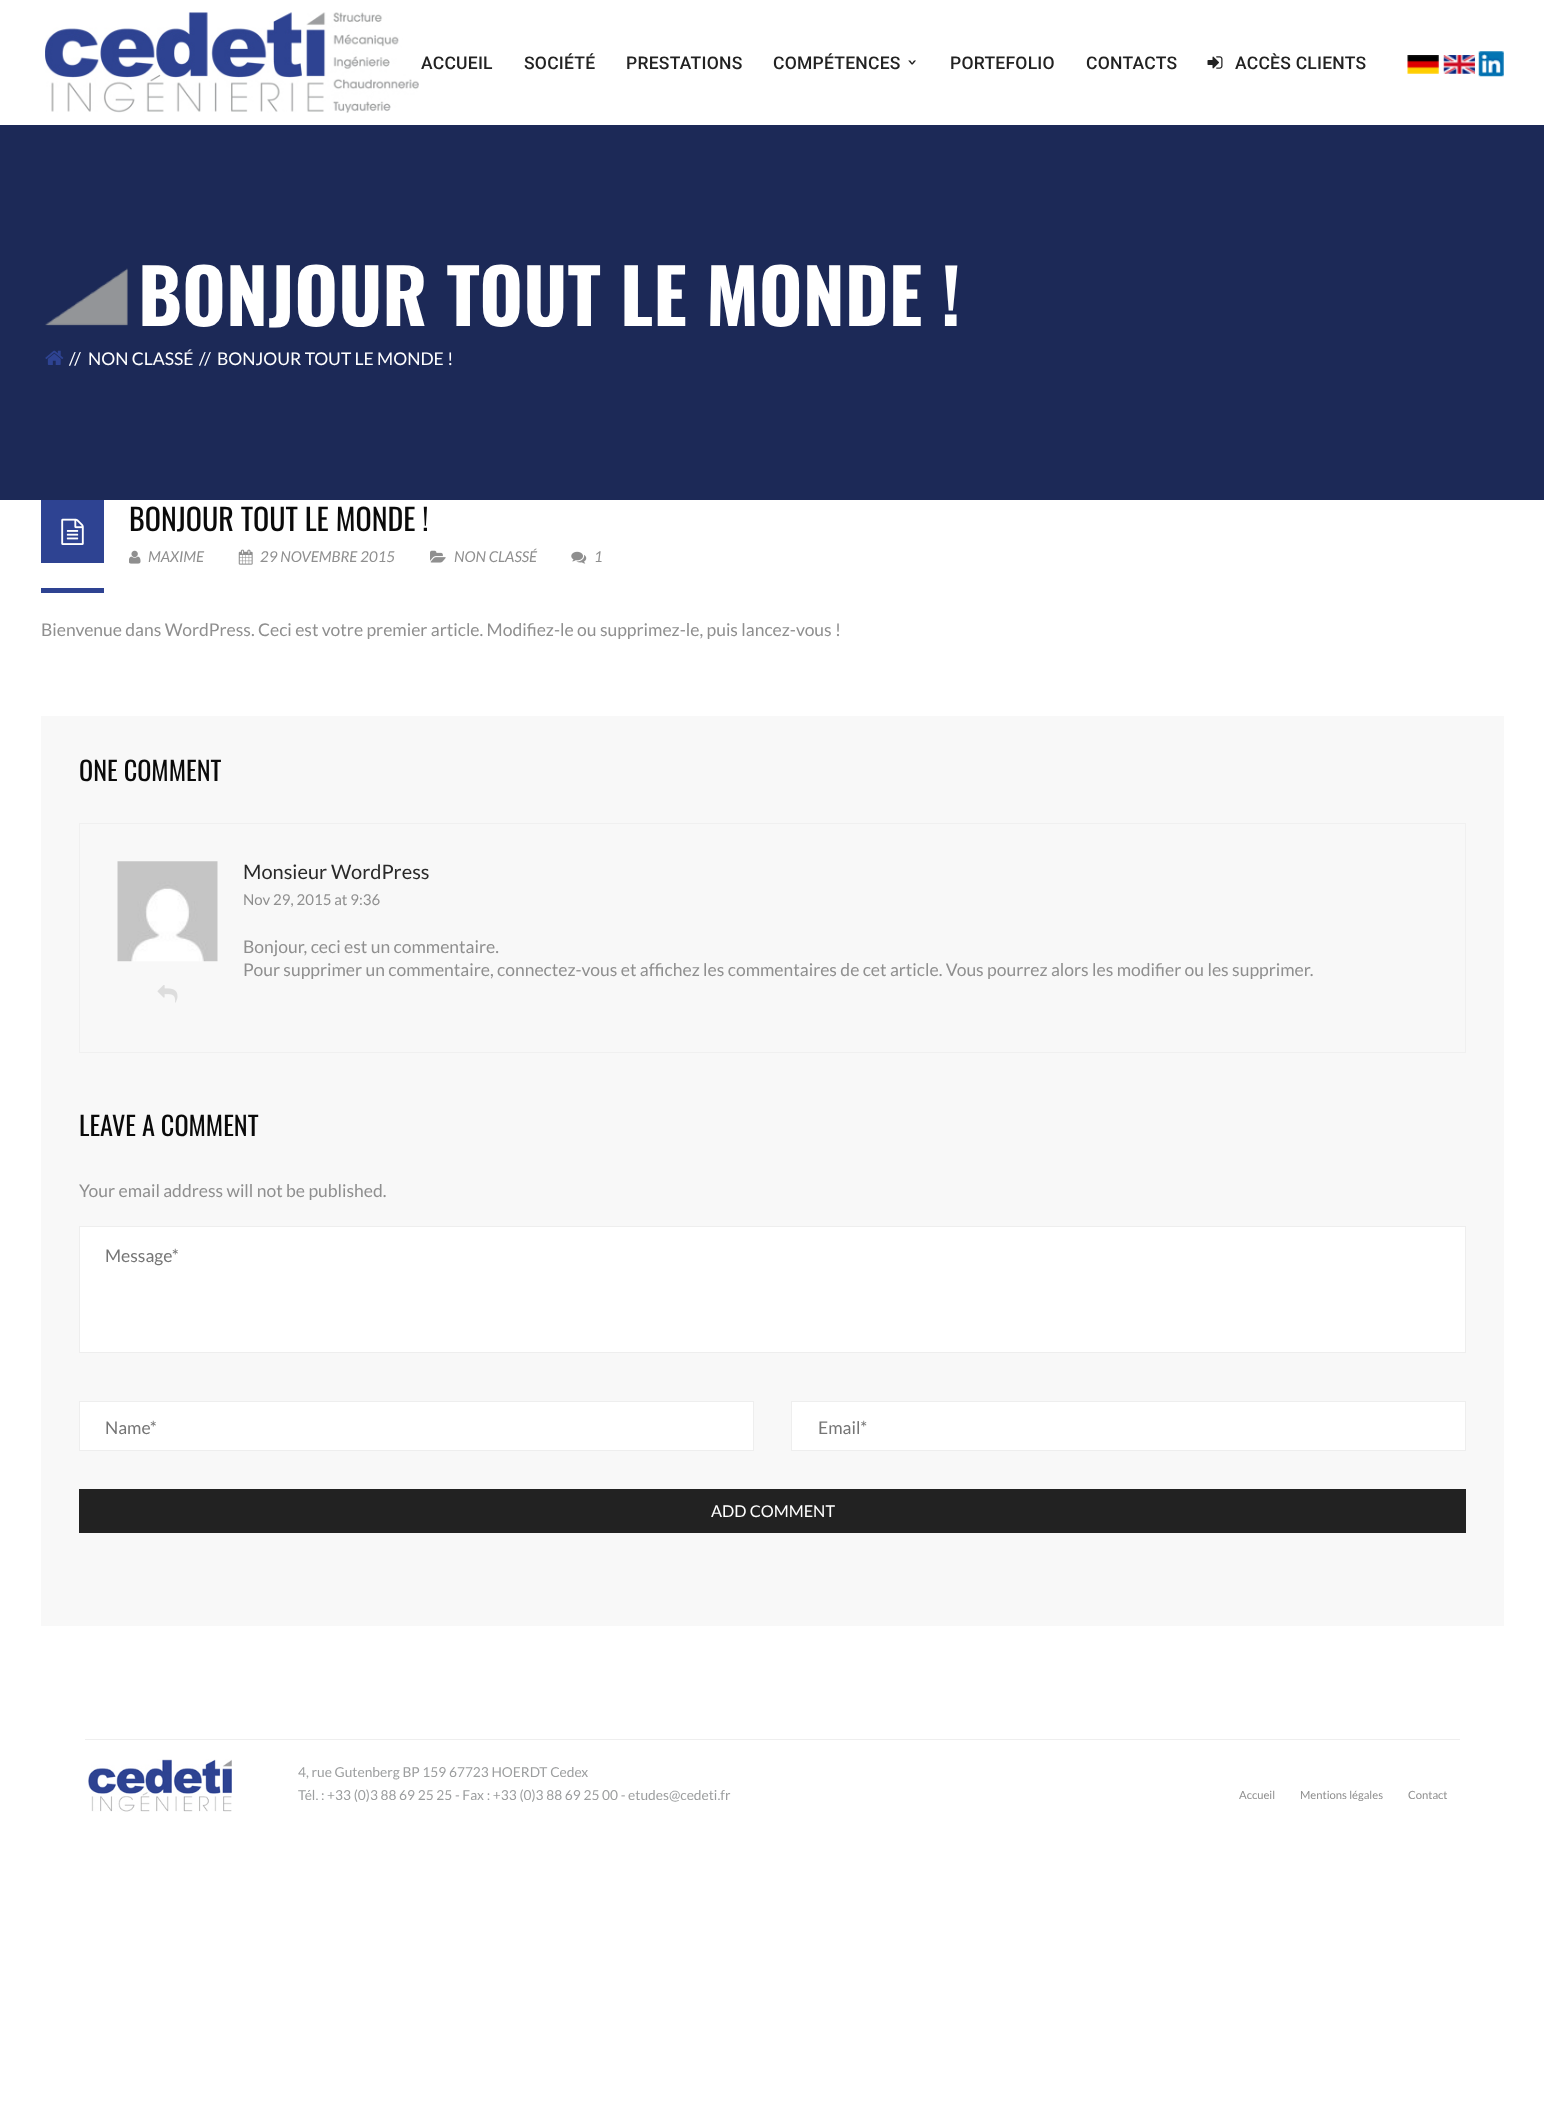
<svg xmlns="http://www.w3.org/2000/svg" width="1544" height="2107">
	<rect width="100%" height="100%" fill="#FFFFFF" />
	<image x="45" y="12" width="374" height="101" href="assets/img1.png" />
	<g font-family="Roboto" font-size="17.5" font-weight="500" letter-spacing="0.25" fill="#222222">
		<text x="421" y="69">ACCUEIL</text>
		<text x="524" y="69">SOCIÉTÉ</text>
		<text x="626" y="69">PRESTATIONS</text>
		<text x="773" y="69">COMPÉTENCES</text>
	</g>
	<text x="907" y="57" transform="rotate(90 907 57)" font-family="DejaVu Sans Mono" font-size="17.5" font-weight="700" letter-spacing="0.25" fill="#222222">›</text>
	<g font-family="Roboto" font-size="17.5" font-weight="500" letter-spacing="0.25" fill="#222222">
		<text x="950" y="69">PORTEFOLIO</text>
		<text x="1086" y="69">CONTACTS</text>
	</g>
	<image x="1207" y="56" width="16" height="13" href="assets/img2.png" />
	<text x="1235" y="69" font-family="Roboto" font-size="17.5" font-weight="500" letter-spacing="0.25" fill="#222222">ACCÈS CLIENTS</text>
	<image x="1407" y="55" width="32" height="19" href="assets/img3.png" />
	<image x="1443" y="55" width="32" height="19" href="assets/img4.png" />
	<image x="1478" y="51" width="26" height="26" href="assets/img5.png" />
	<rect x="0" y="125" width="1544" height="375" fill="#1C2957" />
	<image x="45" y="268" width="83" height="58" href="assets/img6.png" />
	<text x="138" y="326" font-family="Oswald" font-size="75" font-weight="700" fill="#FFFFFF">BONJOUR TOUT LE MONDE !</text>
	<image x="45" y="350" width="19" height="15" href="assets/img7.png" />
	<g font-family="Lato" font-size="17.5" fill="#FFFFFF">
		<text x="69" y="365">//</text>
		<text x="88" y="365">NON CLASSÉ</text>
		<text x="199" y="365">//</text>
		<text x="217" y="365">BONJOUR TOUT LE MONDE !</text>
	</g>
	<rect x="41" y="500" width="63" height="63" fill="#2E4392" />
	<image x="61" y="518" width="23" height="27" href="assets/img8.png" />
	<rect x="41" y="588" width="63" height="5" fill="#2E4392" />
	<text x="129" y="531" font-family="Oswald" font-size="30" fill="#0A0A0A">BONJOUR TOUT LE MONDE !</text>
	<image x="129" y="550" width="12" height="14" href="assets/img9.png" />
	<text x="148" y="562" font-family="Lato" font-size="15" font-style="italic" fill="#8F8F8F">MAXIME</text>
	<image x="238" y="549" width="15" height="16" href="assets/img10.png" />
	<text x="260" y="562" font-family="Lato" font-size="15" font-style="italic" fill="#8F8F8F">29 NOVEMBRE 2015</text>
	<image x="430" y="550" width="16" height="13" href="assets/img11.png" />
	<text x="454" y="562" font-family="Lato" font-size="15" font-style="italic" fill="#8F8F8F">NON CLASSÉ</text>
	<image x="571" y="551" width="16" height="13" href="assets/img12.png" />
	<text x="594" y="562" font-family="Lato" font-size="15" font-style="italic" fill="#8F8F8F">1</text>
	<text x="41" y="636" font-family="Lato" font-size="17.5" fill="#8F8F8F">Bienvenue dans WordPress. Ceci est votre premier article. Modifiez-le ou supprimez-le, puis lancez-vous !</text>
	<rect x="41" y="716" width="1463" height="910" fill="#F8F8F8" />
	<text x="79" y="781" font-family="Oswald" font-size="26.25" fill="#0A0A0A">ONE COMMENT</text>
	<rect x="79.5" y="823.5" width="1386" height="229" fill="none" stroke="#F0F0F0" />
	<image x="117" y="861" width="101" height="101" href="assets/img13.png" />
	<image x="157" y="985" width="21" height="18" href="assets/img14.png" />
	<text x="243" y="879" font-family="Lato" font-size="20" fill="#2A2A2A">Monsieur WordPress</text>
	<text x="243" y="905" font-family="Lato" font-size="15" fill="#8F8F8F">Nov 29, 2015 at 9:36</text>
	<g font-family="Lato" font-size="17.5" fill="#8F8F8F">
		<text x="243" y="953">Bonjour, ceci est un commentaire.</text>
		<text x="243" y="976">Pour supprimer un commentaire, connectez-vous et affichez les commentaires de cet article. Vous pourrez alors les modifier ou les supprimer.</text>
	</g>
	<text x="79" y="1136" font-family="Oswald" font-size="26.25" fill="#0A0A0A">LEAVE A COMMENT</text>
	<text x="79" y="1197" font-family="Lato" font-size="17.5" fill="#8F8F8F">Your email address will not be published.</text>
	<rect x="79.5" y="1226.5" width="1386" height="126" fill="#FFFFFF" stroke="#EEEEEE" />
	<text x="105" y="1262" font-family="Lato" font-size="17.5" fill="#757575">Message*</text>
	<rect x="79.5" y="1401.5" width="674" height="49" fill="#FFFFFF" stroke="#EEEEEE" />
	<text x="105" y="1434" font-family="Lato" font-size="17.5" fill="#757575">Name*</text>
	<rect x="791.5" y="1401.5" width="674" height="49" fill="#FFFFFF" stroke="#EEEEEE" />
	<text x="818" y="1434" font-family="Lato" font-size="17.5" fill="#757575">Email*</text>
	<rect x="79" y="1489" width="1387" height="44" fill="#222222" />
	<text x="711" y="1517" font-family="Lato" font-size="16.25" fill="#FFFFFF">ADD COMMENT</text>
	<rect x="85" y="1739" width="1375" height="1" fill="#EEEEEE" />
	<image x="88" y="1759" width="144" height="53" href="assets/img15.png" />
	<g font-family="Lato" font-size="13.75" fill="#9C9E9F">
		<text x="298" y="1777">4, rue Gutenberg BP 159 67723 HOERDT Cedex</text>
		<text x="298" y="1800">Tél. : +33 (0)3 88 69 25 25 - Fax : +33 (0)3 88 69 25 00 - etudes@cedeti.fr</text>
	</g>
	<g font-family="Lato" font-size="11.25" fill="#8F8F8F">
		<text x="1239" y="1799">Accueil</text>
		<text x="1300" y="1799">Mentions légales</text>
		<text x="1408" y="1799">Contact</text>
	</g>
</svg>
